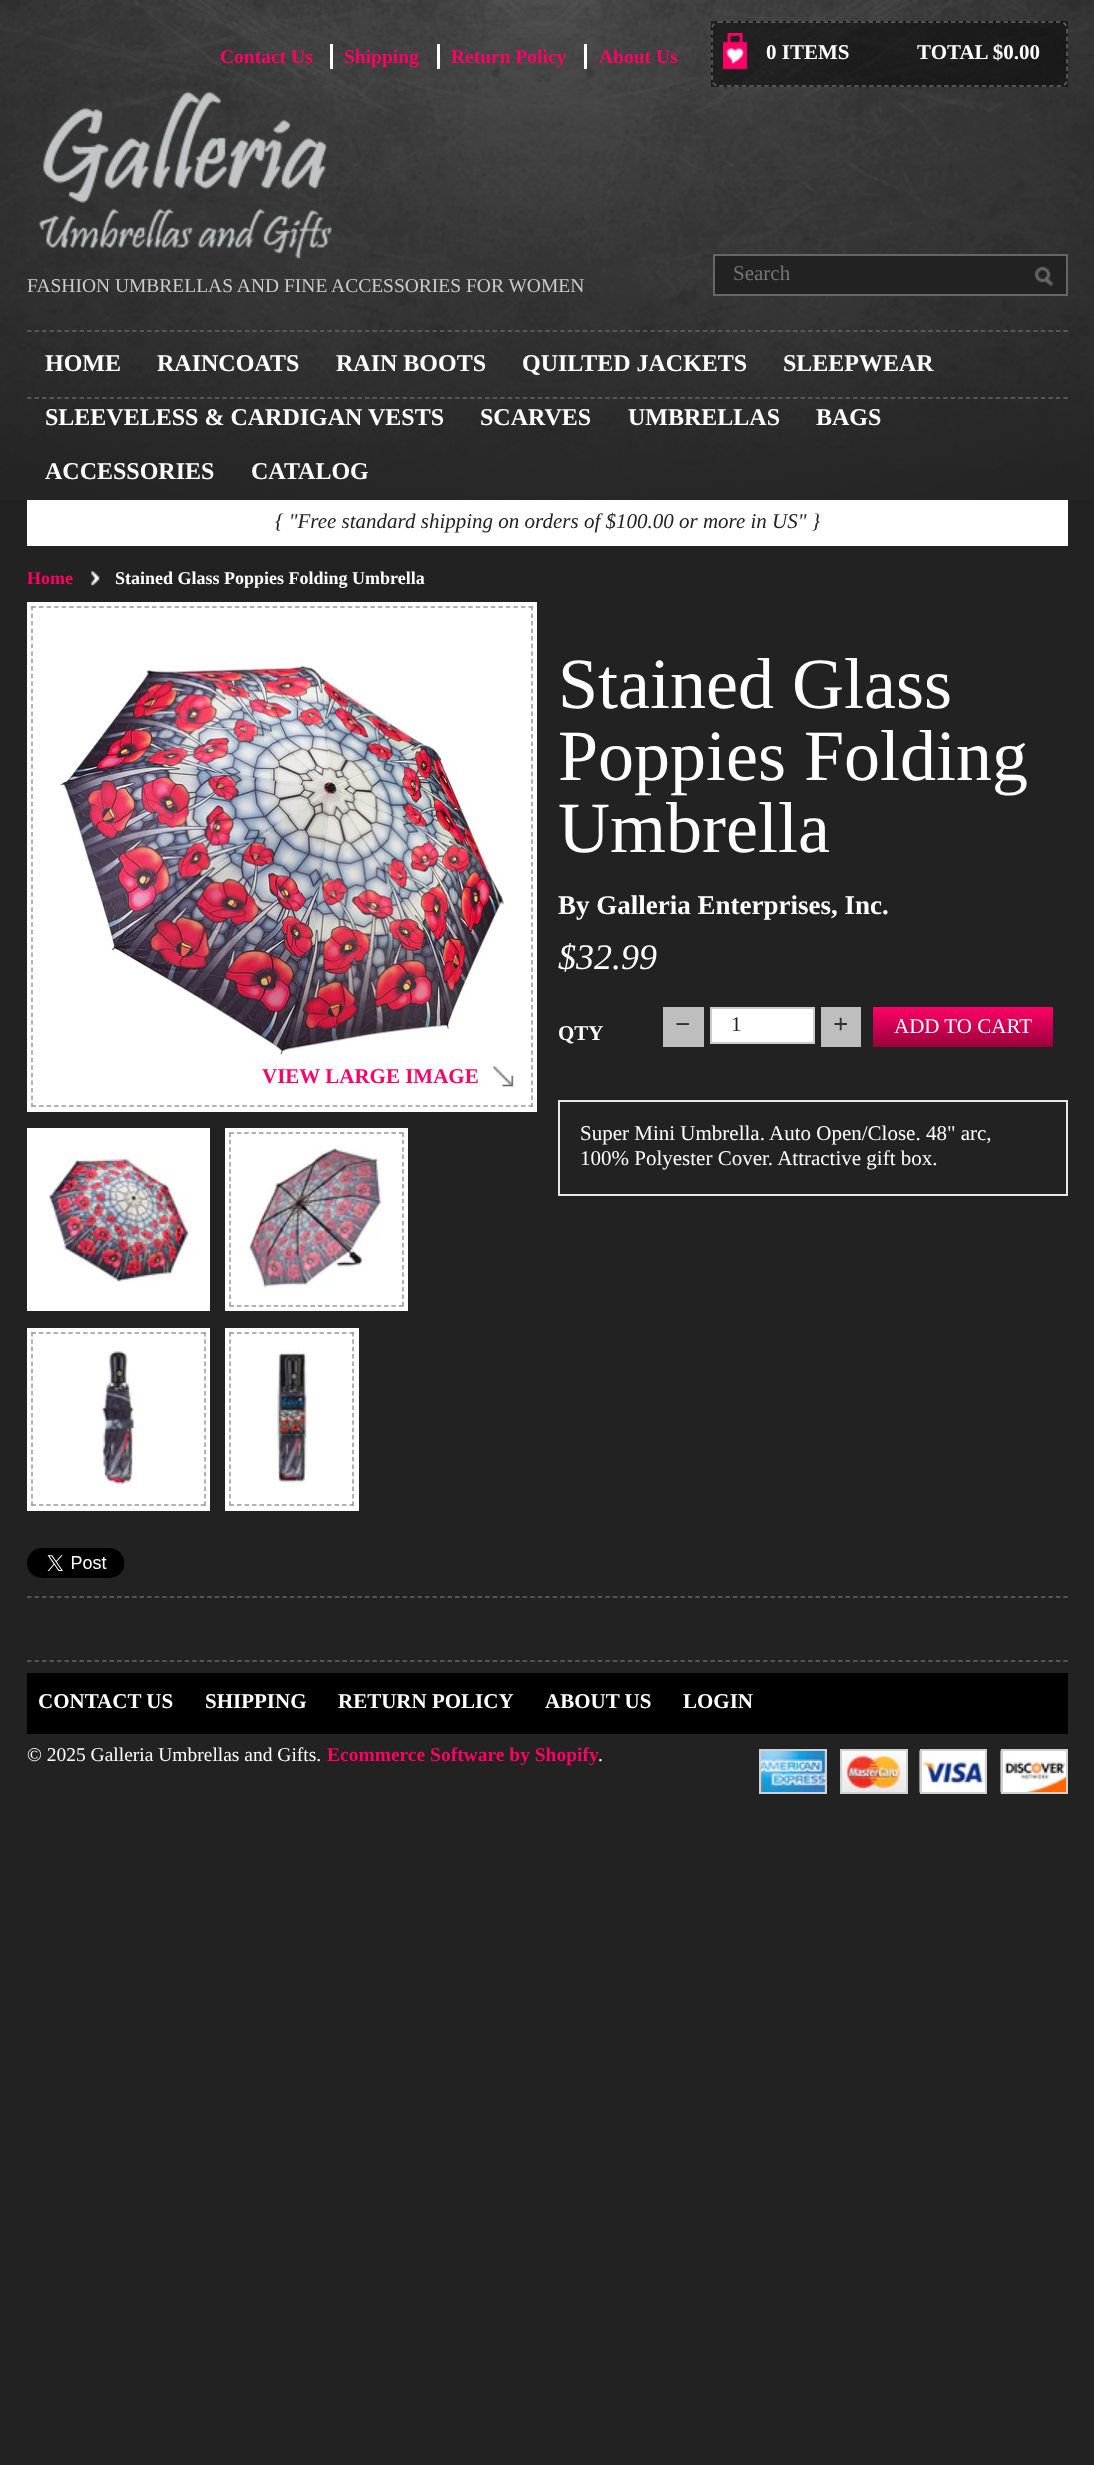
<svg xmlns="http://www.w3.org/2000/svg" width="1094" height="2465">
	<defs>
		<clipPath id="clip1"><rect x="711" y="21" width="357" height="66" /></clipPath>
		<linearGradient id="g1" gradientUnits="userSpaceOnUse" x1="963" y1="1007" x2="963" y2="1047"><stop offset="0" stop-color="#FF0066" /><stop offset="1" stop-color="#99003D" /></linearGradient>
	</defs>
	<rect width="100%" height="100%" fill="#222222" />
	<image x="0" y="0" width="1094" height="500" href="assets/img1.png" />
	<text x="220" y="63" font-family="Liberation Serif" font-size="19.5" font-weight="700" fill="#FF0066">Contact Us</text>
	<rect x="330" y="44" width="3" height="25" fill="#FFFFFF" />
	<text x="344" y="63" font-family="Liberation Serif" font-size="19.5" font-weight="700" fill="#FF0066">Shipping</text>
	<rect x="437" y="44" width="3" height="25" fill="#FFFFFF" />
	<text x="451" y="63" font-family="Liberation Serif" font-size="19.5" font-weight="700" fill="#FF0066">Return Policy</text>
	<rect x="584" y="44" width="3" height="25" fill="#FFFFFF" />
	<text x="599" y="63" font-family="Liberation Serif" font-size="19.5" font-weight="700" fill="#FF0066">About Us</text>
	<g clip-path="url(#clip1)">
		<rect x="709.5" y="19.5" width="361" height="70" rx="9.5" fill="none" stroke="#000000" stroke-opacity="0.5" stroke-width="5" />
	</g>
	<rect x="711" y="21" width="357" height="66" rx="8" fill="#000000" fill-opacity="0.5" />
	<path d="M718.5 22H1060.5C1064 22 1067 25 1067 28.5V79.5C1067 83 1064 86 1060.5 86H718.5C715 86 712 83 712 79.5V28.5C712 25 715 22 718.5 22Z" fill="none" stroke="#666666" stroke-width="1.5" stroke-dasharray="4.5 3" />
	<image x="723" y="33" width="25" height="37" href="assets/img2.png" />
	<g font-family="Liberation Serif" font-size="21" font-weight="700" fill="#FFFFFF">
		<text x="766" y="59">0 ITEMS</text>
		<text x="917" y="59">TOTAL $0.00</text>
	</g>
	<rect x="714" y="255" width="353" height="40" fill="#222222" stroke="#666666" stroke-width="2" />
	<text x="733" y="280" font-family="Liberation Serif" font-size="21" fill="#757575">Search</text>
	<image x="1034" y="266" width="20" height="21" href="assets/img3.png" />
	<image x="38" y="91" width="294" height="168" href="assets/img4.png" />
	<text x="27" y="292" font-family="Liberation Serif" font-size="19.5" fill="#CCCCCC">FASHION UMBRELLAS AND FINE ACCESSORIES FOR WOMEN</text>
	<path d="M27 331H1068" fill="none" stroke="#666666" stroke-width="1.5" stroke-dasharray="4.5 3.01" />
	<path d="M27 398H1068" fill="none" stroke="#666666" stroke-width="1.5" stroke-dasharray="4.5 3.01" />
	<g font-family="Liberation Serif" font-size="24" font-weight="700" fill="#FFFFFF">
		<text x="45" y="371">HOME</text>
		<text x="157" y="371">RAINCOATS</text>
		<text x="336" y="371">RAIN BOOTS</text>
		<text x="522" y="371">QUILTED JACKETS</text>
		<text x="783" y="371">SLEEPWEAR</text>
		<text x="45" y="425">SLEEVELESS &amp; CARDIGAN VESTS</text>
		<text x="480" y="425">SCARVES</text>
		<text x="628" y="425">UMBRELLAS</text>
		<text x="816" y="425">BAGS</text>
		<text x="45" y="479">ACCESSORIES</text>
		<text x="251" y="479">CATALOG</text>
	</g>
	<rect x="27" y="500" width="1041" height="46" fill="#FFFFFF" />
	<text x="275" y="528" font-family="Liberation Serif" font-size="21" font-style="italic" fill="#222222">{ "Free standard shipping on orders of $100.00 or more in US" }</text>
	<text x="27" y="584" font-family="Liberation Serif" font-size="18" font-weight="700" fill="#FF0066">Home</text>
	<image x="91" y="571" width="9" height="15" href="assets/img5.png" />
	<text x="115" y="584" font-family="Liberation Serif" font-size="18" font-weight="700" fill="#FFFFFF">Stained Glass Poppies Folding Umbrella</text>
	<g font-family="Liberation Serif" font-size="72" fill="#FFFFFF">
		<text x="558" y="708">Stained Glass</text>
		<text x="558" y="780">Poppies Folding</text>
		<text x="558" y="852">Umbrella</text>
	</g>
	<text x="558" y="914" font-family="Liberation Serif" font-size="27" font-weight="700" fill="#FFFFFF">By Galleria Enterprises, Inc.</text>
	<text x="558" y="969" font-family="Liberation Serif" font-size="36" font-style="italic" fill="#FFFFFF">$32.99</text>
	<rect x="663" y="1007" width="41" height="40" fill="#BEBEBE" />
	<text x="675" y="1033" font-family="Liberation Serif" font-size="27" font-weight="700" fill="#313131">−</text>
	<rect x="711" y="1008" width="103" height="35" fill="#FFFFFF" stroke="#CCCCCC" stroke-width="2" />
	<text x="731" y="1031" font-family="Liberation Serif" font-size="21" fill="#222222">1</text>
	<rect x="821" y="1007" width="40" height="40" fill="#BEBEBE" />
	<text x="833" y="1033" font-family="Liberation Serif" font-size="27" font-weight="700" fill="#313131">+</text>
	<rect x="873" y="1007" width="180" height="40" fill="url(#g1)" />
	<text x="894" y="1033" font-family="Liberation Serif" font-size="21" fill="#FFFFFF">ADD TO CART</text>
	<text x="558" y="1040" font-family="Liberation Serif" font-size="21" font-weight="700" fill="#FFFFFF">QTY</text>
	<rect x="29.5" y="604.5" width="505" height="505" fill="none" stroke="#FFFFFF" stroke-width="5" />
	<rect x="32" y="607" width="500" height="500" fill="#FFFFFF" />
	<path d="M31.5 607H532.5" fill="none" stroke="#999999" stroke-width="1.5" stroke-dasharray="4.5 3.03" />
	<path d="M532 606V1107" fill="none" stroke="#999999" stroke-width="1.5" stroke-dasharray="4.5 3.03" />
	<path d="M31.5 1106H532.5" fill="none" stroke="#999999" stroke-width="1.5" stroke-dasharray="4.5 3.03" />
	<path d="M32 606V1107" fill="none" stroke="#999999" stroke-width="1.5" stroke-dasharray="4.5 3.03" />
	<image x="60" y="665" width="445" height="390" href="assets/img6.png" />
	<image x="493" y="1066" width="21" height="21" href="assets/img7.png" />
	<text x="262" y="1083" font-family="Liberation Serif" font-size="21" font-weight="700" fill="#FF0066">VIEW LARGE IMAGE</text>
	<rect x="29.5" y="1130.5" width="178" height="178" fill="none" stroke="#FFFFFF" stroke-width="5" />
	<rect x="32" y="1133" width="173" height="173" fill="#FFFFFF" />
	<image x="49" y="1156" width="141" height="127" href="assets/img8.png" />
	<rect x="227.5" y="1130.5" width="178" height="178" fill="none" stroke="#FFFFFF" stroke-width="5" />
	<rect x="230" y="1133" width="173" height="173" fill="#FFFFFF" />
	<path d="M229.5 1133H403.5" fill="none" stroke="#999999" stroke-width="1.5" stroke-dasharray="4.5 2.86" />
	<path d="M403 1132.5V1306.5" fill="none" stroke="#999999" stroke-width="1.5" stroke-dasharray="4.5 2.86" />
	<path d="M229.5 1306H403.5" fill="none" stroke="#999999" stroke-width="1.5" stroke-dasharray="4.5 2.86" />
	<path d="M230 1132.5V1306.5" fill="none" stroke="#999999" stroke-width="1.5" stroke-dasharray="4.5 2.86" />
	<image x="248" y="1145" width="134" height="144" href="assets/img9.png" />
	<rect x="29.5" y="1330.5" width="178" height="178" fill="none" stroke="#FFFFFF" stroke-width="5" />
	<rect x="32" y="1333" width="173" height="173" fill="#FFFFFF" />
	<path d="M31.5 1333H205.5" fill="none" stroke="#999999" stroke-width="1.5" stroke-dasharray="4.5 2.86" />
	<path d="M205 1332V1506" fill="none" stroke="#999999" stroke-width="1.5" stroke-dasharray="4.5 2.86" />
	<path d="M31.5 1505H205.5" fill="none" stroke="#999999" stroke-width="1.5" stroke-dasharray="4.5 2.86" />
	<path d="M32 1332V1506" fill="none" stroke="#999999" stroke-width="1.5" stroke-dasharray="4.5 2.86" />
	<image x="98" y="1351" width="39" height="137" href="assets/img10.png" />
	<rect x="227.5" y="1330.5" width="129" height="178" fill="none" stroke="#FFFFFF" stroke-width="5" />
	<rect x="230" y="1333" width="124" height="173" fill="#FFFFFF" />
	<path d="M229.5 1333H354" fill="none" stroke="#999999" stroke-width="1.5" stroke-dasharray="4.5 3" />
	<path d="M353 1332V1506" fill="none" stroke="#999999" stroke-width="1.5" stroke-dasharray="4.5 2.86" />
	<path d="M229.5 1505H354" fill="none" stroke="#999999" stroke-width="1.5" stroke-dasharray="4.5 3" />
	<path d="M230 1332V1506" fill="none" stroke="#999999" stroke-width="1.5" stroke-dasharray="4.5 2.86" />
	<image x="277" y="1350" width="36" height="138" href="assets/img11.png" />
	<image x="27" y="1548" width="98" height="30" href="assets/img12.png" />
	<rect x="559" y="1101" width="508" height="94" fill="none" stroke="#E8E8E8" stroke-width="2" />
	<g font-family="Liberation Serif" font-size="21" fill="#FFFFFF">
		<text x="580" y="1140">Super Mini Umbrella. Auto Open/Close. 48" arc,</text>
		<text x="580" y="1165">100% Polyester Cover. Attractive gift box.</text>
	</g>
	<path d="M27 1597H1068" fill="none" stroke="#666666" stroke-width="1.5" stroke-dasharray="4.5 3.01" />
	<path d="M27 1661H1068" fill="none" stroke="#666666" stroke-width="1.5" stroke-dasharray="4.5 3.01" />
	<rect x="27" y="1673" width="1041" height="61" fill="#000000" />
	<g font-family="Liberation Serif" font-size="21" font-weight="700" fill="#FFFFFF">
		<text x="38" y="1708">CONTACT US</text>
		<text x="205" y="1708">SHIPPING</text>
		<text x="338" y="1708">RETURN POLICY</text>
		<text x="545" y="1708">ABOUT US</text>
		<text x="683" y="1708">LOGIN</text>
	</g>
	<text x="27" y="1761" font-family="Liberation Serif" font-size="19.5" fill="#FFFFFF">© 2025 Galleria Umbrellas and Gifts.</text>
	<text x="327" y="1761" font-family="Liberation Serif" font-size="19.5" font-weight="700" fill="#FF0066">Ecommerce Software by Shopify</text>
	<text x="598" y="1761" font-family="Liberation Serif" font-size="19.5" fill="#FFFFFF">.</text>
	<image x="761" y="1751" width="64" height="41" href="assets/img13.png" />
	<rect x="760" y="1750" width="66" height="43" fill="none" stroke="#D1D1D1" stroke-width="2" />
	<image x="842" y="1751" width="64" height="41" href="assets/img14.png" />
	<rect x="841" y="1750" width="66" height="43" fill="none" stroke="#D1D1D1" stroke-width="2" />
	<image x="919" y="1750" width="66" height="43" href="assets/img15.png" />
	<rect x="921" y="1750" width="65" height="43" fill="none" stroke="#D1D1D1" stroke-width="2" />
	<image x="1000" y="1750" width="66" height="43" href="assets/img16.png" />
	<rect x="1002" y="1750" width="65" height="43" fill="none" stroke="#D1D1D1" stroke-width="2" />
</svg>
